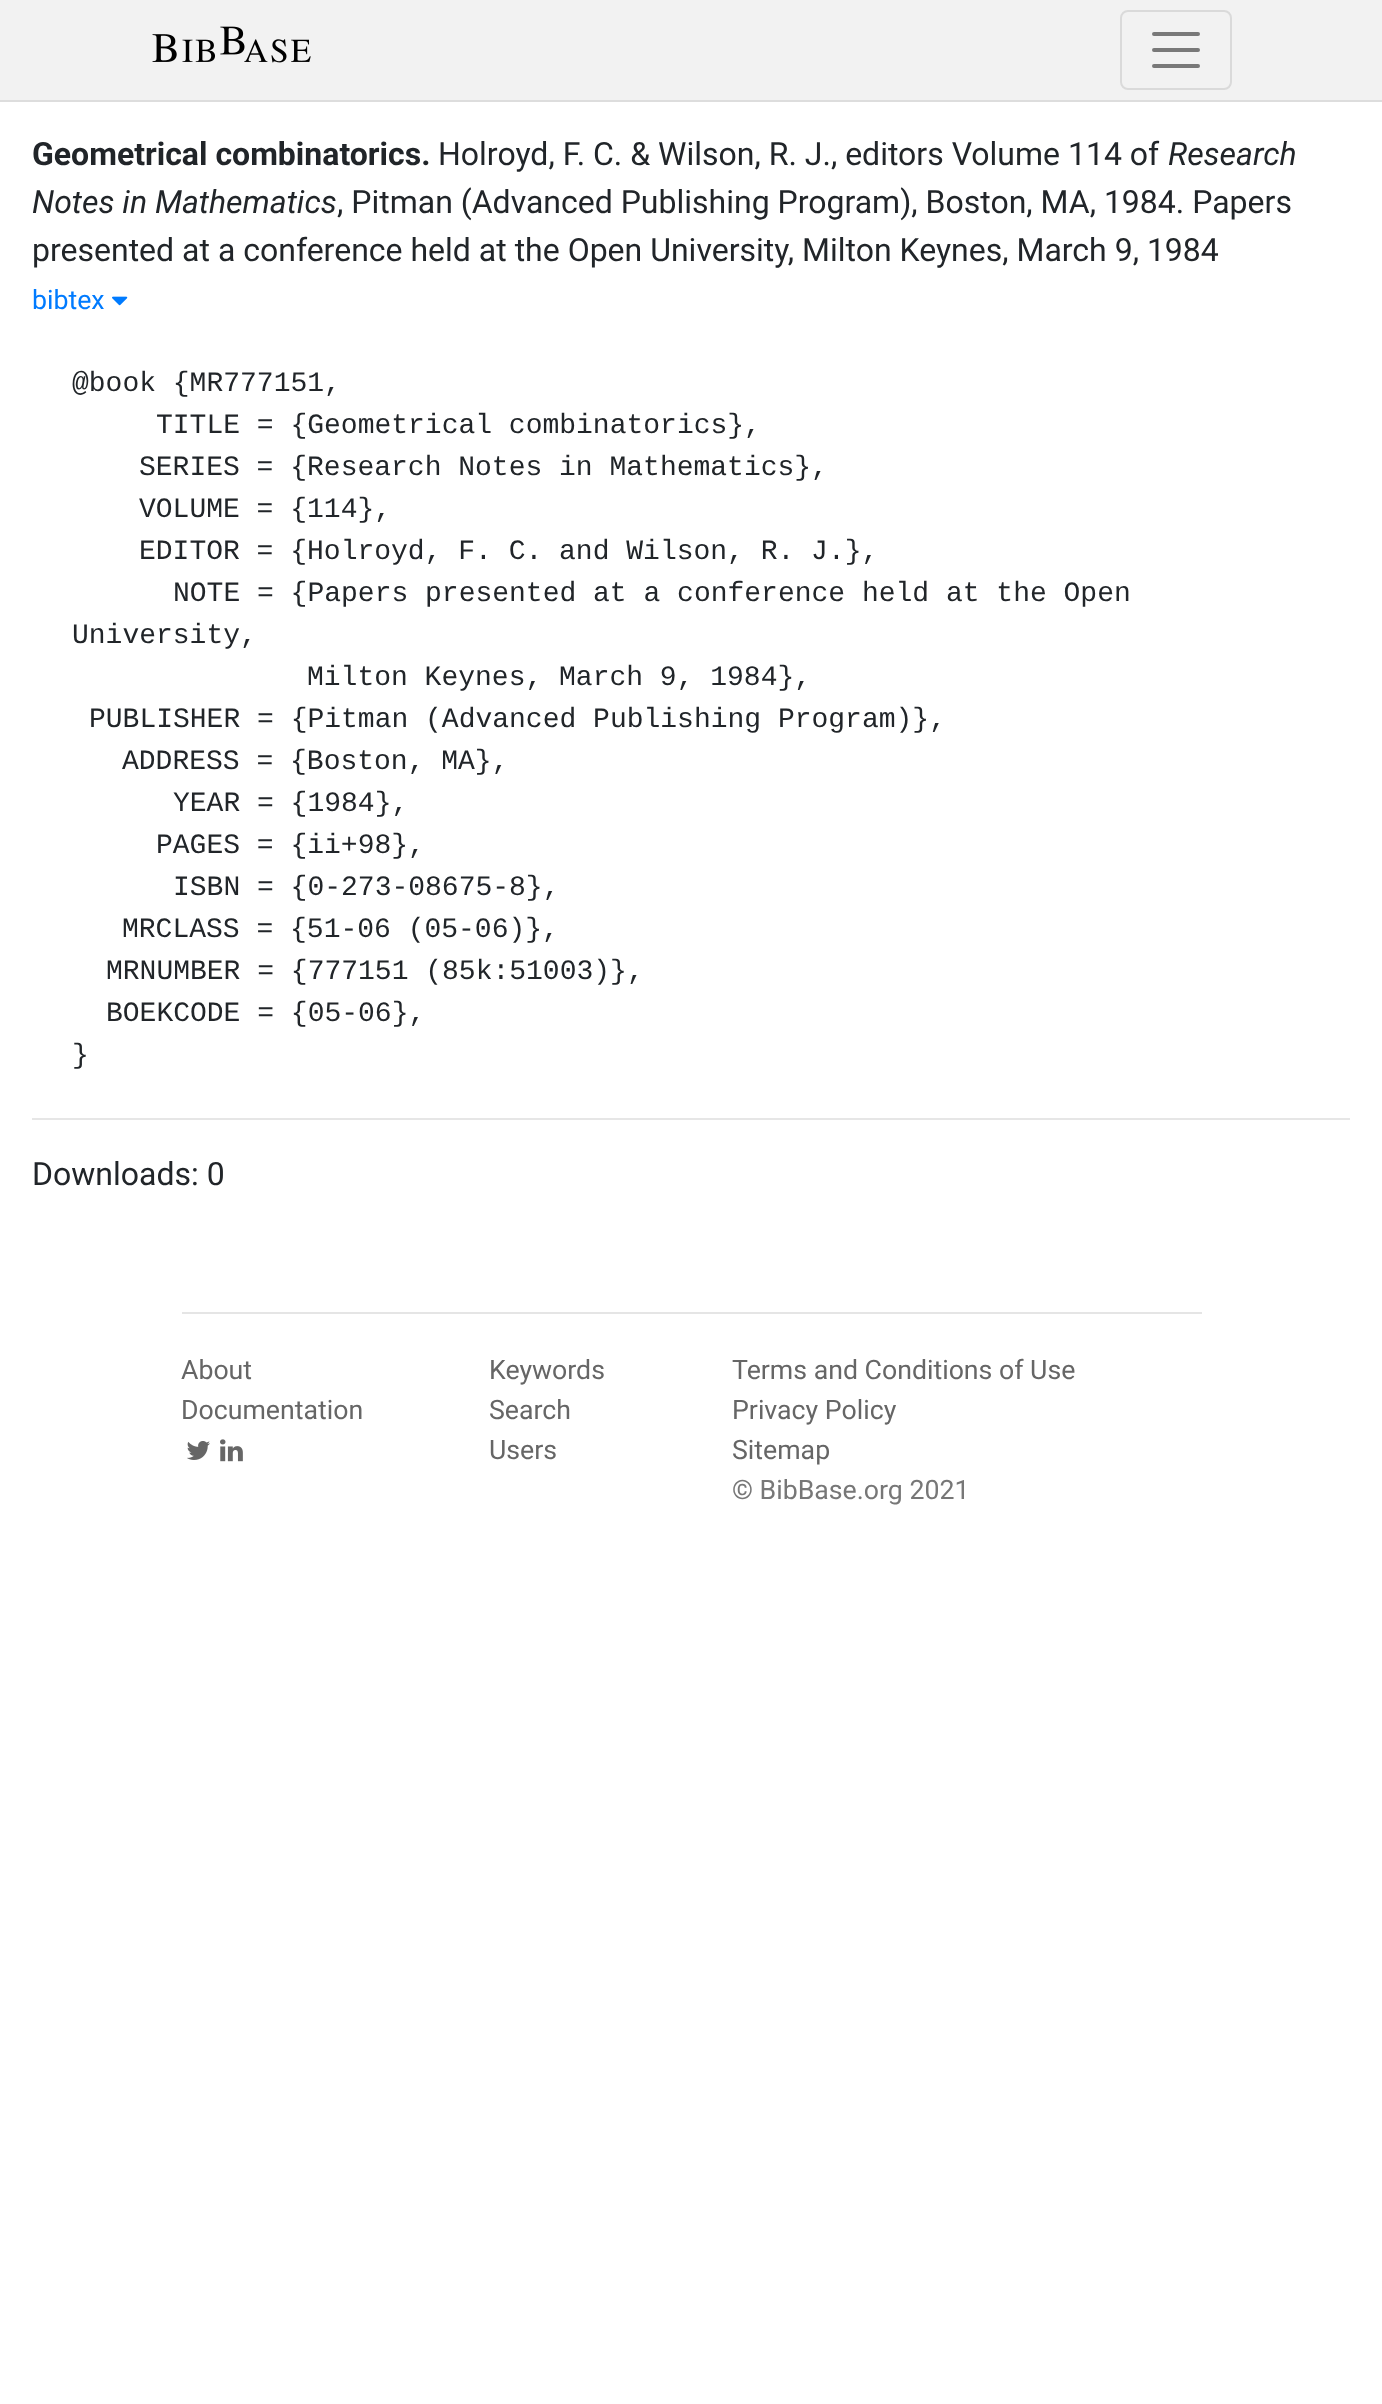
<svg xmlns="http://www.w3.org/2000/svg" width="1382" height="2404">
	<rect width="100%" height="100%" fill="#FFFFFF" />
	<rect x="0" y="0" width="1382" height="100" fill="#F2F2F2" />
	<rect x="0" y="100" width="1382" height="2" fill="#DDDDDD" />
	<image x="152" y="26" width="159" height="37" href="assets/img1.png" />
	<rect x="1121" y="11" width="110" height="78" rx="7" fill="none" stroke="#DADADA" stroke-width="2" />
	<path d="M1154 34H1198M1154 50H1198M1154 66H1198" fill="none" stroke="#797979" stroke-width="4" stroke-linecap="round" />
	<text x="32" y="165" font-family="Roboto" font-size="32" font-weight="700" fill="#212529">Geometrical combinatorics.</text>
	<text x="438" y="165" font-family="Roboto" font-size="32" fill="#212529">Holroyd, F. C. &amp; Wilson, R. J., editors Volume 114 of</text>
	<g font-family="Roboto" font-size="32" font-style="italic" fill="#212529">
		<text x="1168" y="165">Research</text>
		<text x="32" y="213">Notes in Mathematics</text>
	</g>
	<g font-family="Roboto" font-size="32" fill="#212529">
		<text x="337" y="213">, Pitman (Advanced Publishing Program), Boston, MA, 1984. Papers</text>
		<text x="32" y="261">presented at a conference held at the Open University, Milton Keynes, March 9, 1984</text>
	</g>
	<text x="32" y="309" font-family="Roboto" font-size="26.7" fill="#007BFF">bibtex</text>
	<image x="112" y="296" width="16" height="10" href="assets/img2.png" />
	<g font-family="Liberation Mono" font-size="28" fill="#212529">
		<text x="72" y="391">@book {MR777151,</text>
		<text x="156" y="433">TITLE = {Geometrical combinatorics},</text>
		<text x="139" y="475">SERIES = {Research Notes in Mathematics},</text>
		<text x="139" y="517">VOLUME = {114},</text>
		<text x="139" y="559">EDITOR = {Holroyd, F. C. and Wilson, R. J.},</text>
		<text x="173" y="601">NOTE = {Papers presented at a conference held at the Open</text>
		<text x="72" y="643">University,</text>
		<text x="307" y="685">Milton Keynes, March 9, 1984},</text>
		<text x="89" y="727">PUBLISHER = {Pitman (Advanced Publishing Program)},</text>
		<text x="122" y="769">ADDRESS = {Boston, MA},</text>
		<text x="173" y="811">YEAR = {1984},</text>
		<text x="156" y="853">PAGES = {ii+98},</text>
		<text x="173" y="895">ISBN = {0-273-08675-8},</text>
		<text x="122" y="937">MRCLASS = {51-06 (05-06)},</text>
		<text x="106" y="979">MRNUMBER = {777151 (85k:51003)},</text>
		<text x="106" y="1021">BOEKCODE = {05-06},</text>
		<text x="72" y="1063">}</text>
	</g>
	<rect x="32" y="1118" width="1318" height="2" fill="#E6E6E6" />
	<text x="32" y="1185" font-family="Roboto" font-size="32" fill="#212529">Downloads: 0</text>
	<rect x="182" y="1312" width="1020" height="2" fill="#E5E5E5" />
	<g font-family="Roboto" font-size="26.7" fill="#666666">
		<text x="181" y="1379">About</text>
		<text x="181" y="1419">Documentation</text>
	</g>
	<image x="187" y="1441" width="23" height="19" href="assets/img3.png" />
	<image x="220" y="1439" width="23" height="23" href="assets/img4.png" />
	<g font-family="Roboto" font-size="26.7" fill="#666666">
		<text x="489" y="1379">Keywords</text>
		<text x="489" y="1419">Search</text>
		<text x="489" y="1459">Users</text>
		<text x="732" y="1379">Terms and Conditions of Use</text>
		<text x="732" y="1419">Privacy Policy</text>
		<text x="732" y="1459">Sitemap</text>
	</g>
	<text x="732" y="1499" font-family="Roboto" font-size="26.7" fill="#777777">© BibBase.org 2021</text>
</svg>
